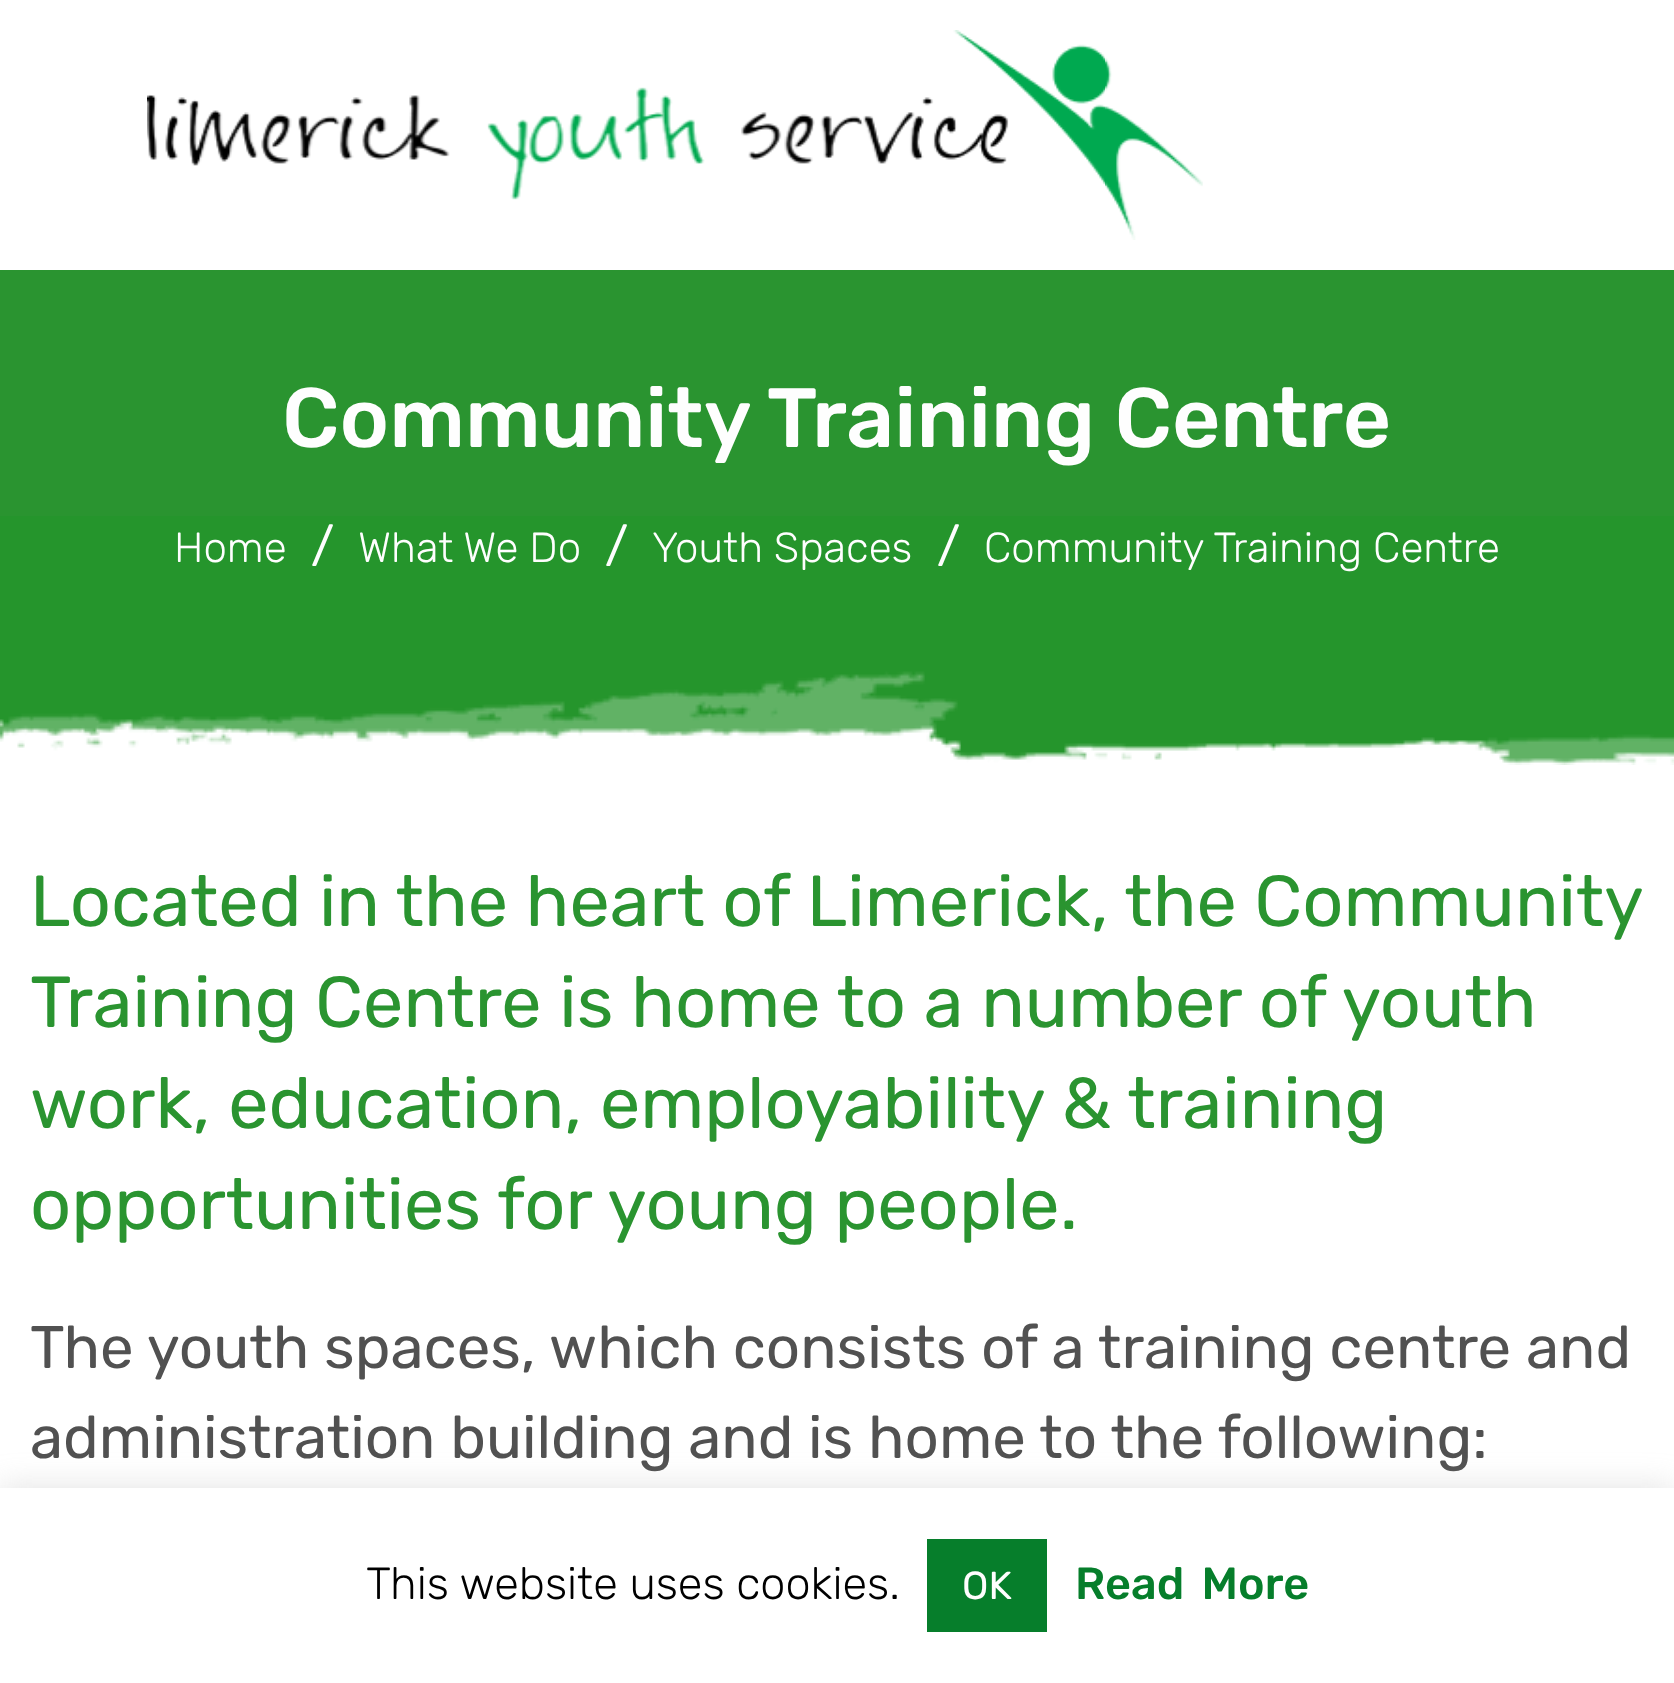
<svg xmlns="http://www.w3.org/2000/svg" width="1674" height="1683">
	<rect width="100%" height="100%" fill="#FFFFFF" />
	<image x="147" y="30" width="1056" height="210" href="assets/img1.png" />
	<image x="0" y="516" width="1674" height="249" href="assets/img2.png" />
	<rect x="0" y="270" width="1674" height="246" fill="#2A9430" />
	<text x="282" y="447" font-family="Rubik" font-size="84" font-weight="500" fill="#FEFEFE">Community Training Centre</text>
	<text x="174" y="562" font-family="Rubik" font-size="42" font-weight="300" fill="#FEFEFE">Home</text>
	<text x="311" y="562" font-family="Rubik" font-size="48" fill="#FEFEFE">/</text>
	<text x="358" y="562" font-family="Rubik" font-size="42" font-weight="300" fill="#FEFEFE">What We Do</text>
	<text x="605" y="562" font-family="Rubik" font-size="48" fill="#FEFEFE">/</text>
	<text x="652" y="562" font-family="Rubik" font-size="42" font-weight="300" fill="#FEFEFE">Youth Spaces</text>
	<text x="937" y="562" font-family="Rubik" font-size="48" fill="#FEFEFE">/</text>
	<text x="984" y="562" font-family="Rubik" font-size="42" font-weight="300" fill="#FEFEFE">Community Training Centre</text>
	<g font-family="Rubik" font-size="72" fill="#2A9430">
		<text x="30" y="926" word-spacing="-0.25">Located in the heart of Limerick, the Community</text>
		<text x="30" y="1027">Training Centre is home to a number of youth</text>
		<text x="30" y="1128">work, education, employability &amp; training</text>
		<text x="30" y="1229">opportunities for young people.</text>
	</g>
	<g font-family="Rubik" font-size="60" fill="#515151">
		<text x="30" y="1368">The youth spaces, which consists of a training centre and</text>
		<text x="30" y="1458">administration building and is home to the following:</text>
	</g>
	<rect x="0" y="1485" width="1674" height="195" fill="#ACABAB" fill-opacity="0.3" filter="blur(15px)" />
	<rect x="0" y="1488" width="1674" height="195" fill="#FFFFFF" />
	<text x="366" y="1599" font-family="Rubik" font-size="45" font-weight="300" fill="#000000">This website uses cookies.</text>
	<rect x="927" y="1539" width="120" height="93" fill="#067E2B" />
	<text x="962" y="1599" font-family="Rubik" font-size="39" fill="#FEFEFE">OK</text>
	<text x="1075" y="1599" word-spacing="7" font-family="Rubik" font-size="45" font-weight="500" fill="#067E2B">Read More</text>
</svg>
